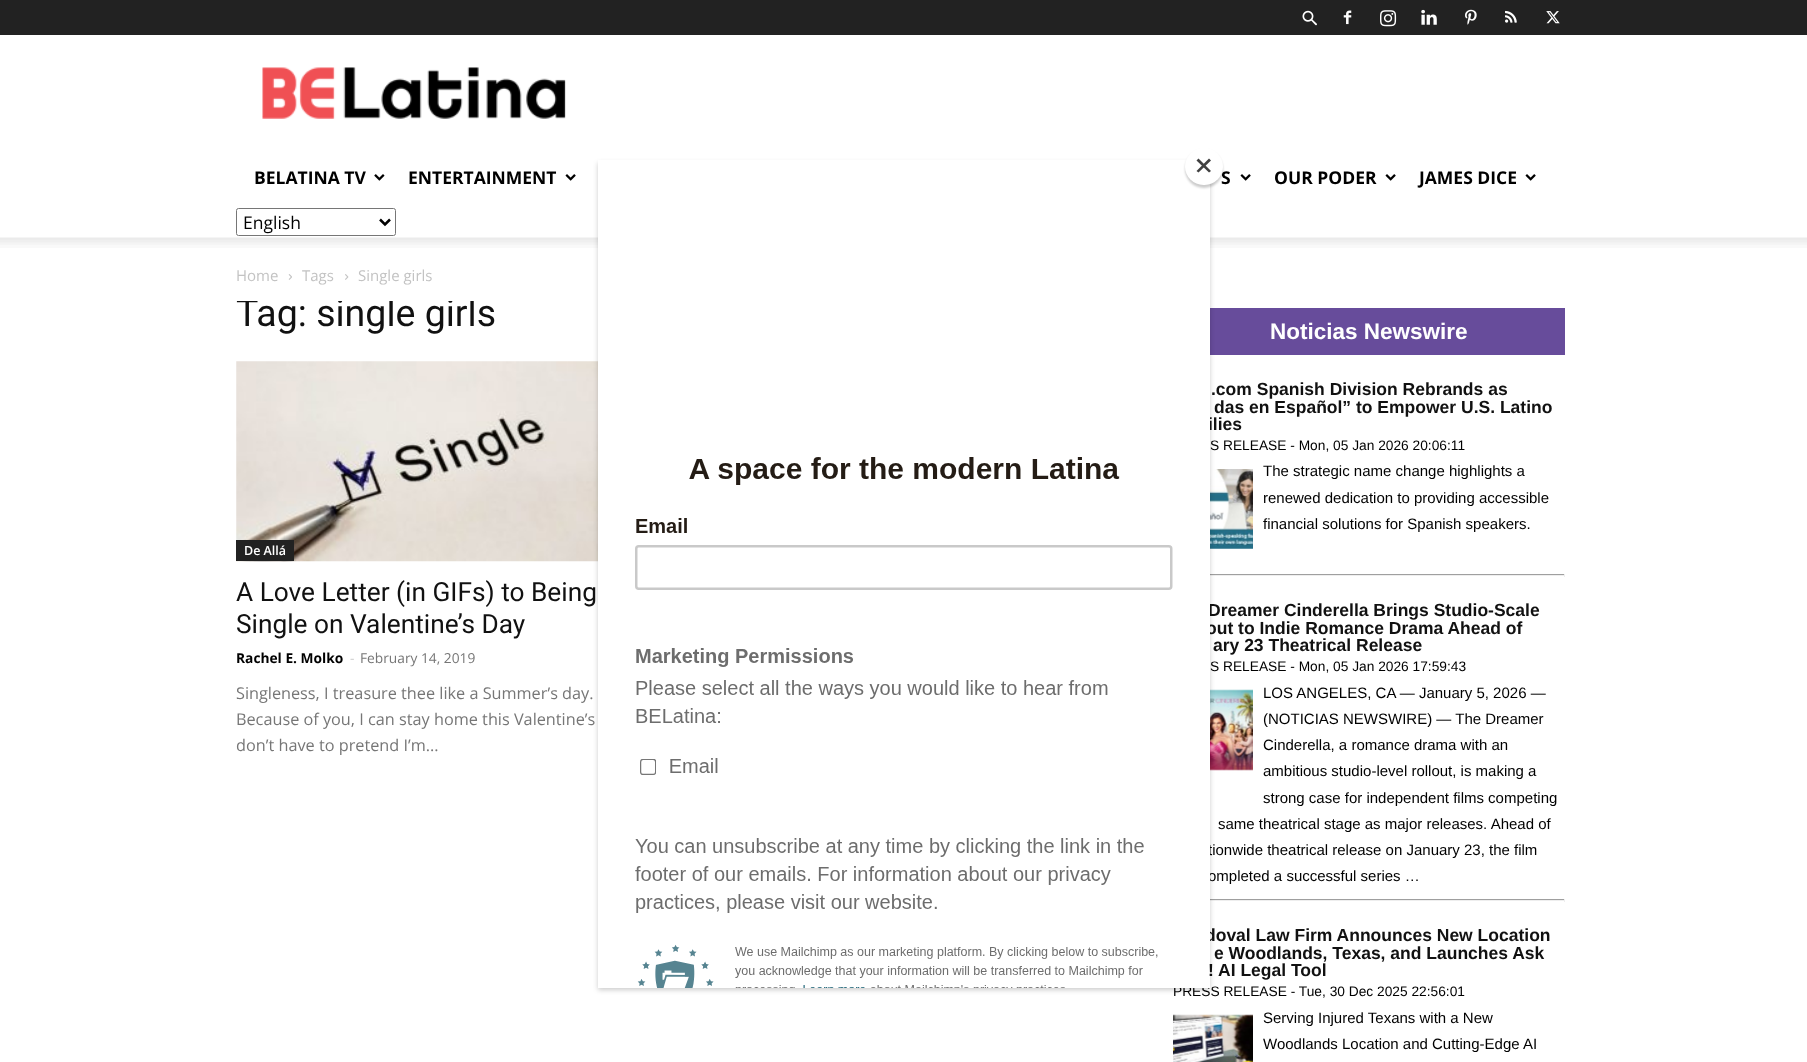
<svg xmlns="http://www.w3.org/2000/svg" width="1807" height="1062">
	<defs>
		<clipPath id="clip1"><path d="M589 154H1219V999H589ZM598 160H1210V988H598Z" clip-rule="evenodd" /></clipPath>
		<clipPath id="clip2"><rect x="206" y="301" width="930" height="498" /></clipPath>
	</defs>
	<rect width="100%" height="100%" fill="#FFFFFF" />
	<image x="0" y="237" width="1807" height="11" href="assets/img12.png" />
	<image x="236" y="361" width="362" height="201" href="assets/img15.png" />
	<rect x="1210" y="308" width="355" height="47" fill="#674C9B" />
	<image x="1210" y="469" width="43" height="80" href="assets/img16.png" />
	<rect x="1210" y="574" width="355" height="1" fill="#9F9F9F" />
	<rect x="1564" y="574" width="1" height="3" fill="#EEEEEE" />
	<rect x="1210" y="575" width="355" height="1" fill="#EEEEEE" />
	<image x="1210" y="689" width="43" height="82" href="assets/img17.png" />
	<rect x="1210" y="899" width="355" height="1" fill="#9F9F9F" />
	<rect x="1564" y="899" width="1" height="3" fill="#EEEEEE" />
	<rect x="1210" y="900" width="355" height="1" fill="#EEEEEE" />
	<g clip-path="url(#clip1)">
		<rect x="598" y="163" width="612" height="827" fill="#000000" fill-opacity="0.2" filter="blur(2.5px)" />
	</g>
	<g font-family="Liberation Sans" font-size="17.5" font-weight="700" fill="#111111">
		<text x="1208" y="430">ilies</text>
		<text x="1208" y="616">Dreamer Cinderella Brings Studio-Scale</text>
		<text x="1206" y="634">out to Indie Romance Drama Ahead of</text>
	</g>
	<g font-family="Liberation Sans" font-size="15" fill="#000000">
		<text x="1208" y="855">tionwide theatrical release on January 23, the film</text>
		<text x="1208" y="881">ompleted a successful series …</text>
	</g>
	<text x="1205" y="941" font-family="Liberation Sans" font-size="17.5" font-weight="700" fill="#111111">doval Law Firm Announces New Location</text>
	<text x="1173" y="996" font-family="Liberation Sans" font-size="13.75" fill="#000000">PRESS RELEASE - Tue, 30 Dec 2025 22:56:01</text>
	<image x="598" y="171" width="612" height="817" href="assets/img1.png" />
	<rect x="1185" y="150" width="38" height="38" rx="19" fill="#000000" fill-opacity="0.2" filter="blur(1px)" />
	<text x="1221" y="184" font-family="Open Sans" font-size="17.5" font-weight="700" fill="#000000">S</text>
	<rect x="1185" y="148" width="38" height="37" rx="18.5" fill="#FFFFFF" />
	<path d="M1209 158.5L1211 160.5L1198.5 172.5L1196.5 171Z" fill="#414141" />
	<path d="M1196.5 160.5L1198.5 158.5L1211 171L1209 172.5Z" fill="#414141" />
	<rect x="0" y="0" width="1807" height="35" fill="#222222" />
	<image x="1302" y="10" width="15" height="16" href="assets/img2.png" />
	<image x="1343" y="10" width="9" height="15" href="assets/img3.png" />
	<image x="1380" y="10" width="17" height="17" href="assets/img4.png" />
	<image x="1421" y="9" width="16" height="16" href="assets/img5.png" />
	<image x="1465" y="9" width="12" height="16" href="assets/img6.png" />
	<image x="1505" y="10" width="12" height="13" href="assets/img7.png" />
	<image x="1546" y="11" width="14" height="13" href="assets/img8.png" />
	<image x="262" y="67" width="304" height="52" href="assets/img9.png" />
	<text x="254" y="184" font-family="Open Sans" font-size="17.5" font-weight="700" fill="#000000">BELATINA TV</text>
	<image x="374" y="174" width="11" height="7" href="assets/img10.png" />
	<text x="408" y="184" font-family="Open Sans" font-size="17.5" font-weight="700" fill="#000000">ENTERTAINMENT</text>
	<image x="565" y="174" width="11" height="7" href="assets/img11.png" />
	<image x="1240" y="174" width="11" height="7" href="assets/img11.png" />
	<text x="1274" y="184" font-family="Open Sans" font-size="17.5" font-weight="700" fill="#000000">OUR PODER</text>
	<image x="1385" y="174" width="11" height="7" href="assets/img11.png" />
	<text x="1419" y="184" font-family="Open Sans" font-size="17.5" font-weight="700" fill="#000000">JAMES DICE</text>
	<image x="1525" y="174" width="11" height="7" href="assets/img11.png" />
	<rect x="236.5" y="208.5" width="159" height="27" rx="2" fill="none" stroke="#767676" />
	<path d="M380 219.5L385 224.5L390 219.5" fill="none" stroke="#000000" stroke-width="2.5" />
	<text x="243" y="229" font-family="Open Sans" font-size="17.5" fill="#000000">English</text>
	<text x="236" y="281" font-family="Open Sans" font-size="15" fill="#C3C3C3">Home</text>
	<image x="288" y="274" width="4" height="6" href="assets/img13.png" />
	<text x="302" y="281" font-family="Open Sans" font-size="15" fill="#C3C3C3">Tags</text>
	<image x="345" y="274" width="4" height="6" href="assets/img14.png" />
	<text x="358" y="281" font-family="Open Sans" font-size="15" fill="#C3C3C3">Single girls</text>
	<g clip-path="url(#clip2)">
		<text x="236" y="326" font-family="Roboto" font-size="37.5" fill="#111111">Tag: single girls</text>
	</g>
	<rect x="236" y="540" width="58" height="21" fill="#222222" />
	<text x="244" y="555" font-family="Open Sans" font-size="12.5" font-weight="600" fill="#FFFFFF">De Allá</text>
	<g font-family="Roboto" font-size="26.25" fill="#111111">
		<text x="236" y="601">A Love Letter (in GIFs) to Being</text>
		<text x="236" y="633">Single on Valentine’s Day</text>
	</g>
	<text x="236" y="663" font-family="Open Sans" font-size="13.75" font-weight="700" fill="#000000">Rachel E. Molko</text>
	<text x="350" y="663" font-family="Open Sans" font-size="13.75" fill="#CCCCCC">-</text>
	<text x="360" y="663" font-family="Open Sans" font-size="13.75" fill="#767676">February 14, 2019</text>
	<g font-family="Open Sans" font-size="16.25" fill="#767676">
		<text x="236" y="699">Singleness, I treasure thee like a Summer’s day.</text>
		<text x="236" y="725">Because of you, I can stay home this Valentine’s</text>
		<text x="236" y="751">don’t have to pretend I’m...</text>
	</g>
	<text x="1270" y="339" font-family="Liberation Sans" font-size="22.5" font-weight="700" fill="#FFFFFF">Noticias Newswire</text>
	<g font-family="Liberation Sans" font-size="17.5" font-weight="700" fill="#111111">
		<text x="1211" y="395">.com Spanish Division Rebrands as</text>
		<text x="1214" y="413">das en Español” to Empower U.S. Latino</text>
	</g>
	<text x="1210" y="450" font-family="Liberation Sans" font-size="13.75" fill="#000000">S RELEASE - Mon, 05 Jan 2026 20:06:11</text>
	<g font-family="Liberation Sans" font-size="15" fill="#000000">
		<text x="1263" y="476">The strategic name change highlights a</text>
		<text x="1263" y="503">renewed dedication to providing accessible</text>
		<text x="1263" y="529">financial solutions for Spanish speakers.</text>
	</g>
	<text x="1213" y="651" font-family="Liberation Sans" font-size="17.5" font-weight="700" fill="#111111">ary 23 Theatrical Release</text>
	<text x="1210" y="671" font-family="Liberation Sans" font-size="13.75" fill="#000000">S RELEASE - Mon, 05 Jan 2026 17:59:43</text>
	<g font-family="Liberation Sans" font-size="15" fill="#000000">
		<text x="1263" y="698">LOS ANGELES, CA — January 5, 2026 —</text>
		<text x="1263" y="724">(NOTICIAS NEWSWIRE) — The Dreamer</text>
		<text x="1263" y="750">Cinderella, a romance drama with an</text>
		<text x="1263" y="776">ambitious studio-level rollout, is making a</text>
		<text x="1263" y="803">strong case for independent films competing</text>
		<text x="1218" y="829">same theatrical stage as major releases. Ahead of</text>
	</g>
	<g font-family="Liberation Sans" font-size="17.5" font-weight="700" fill="#111111">
		<text x="1214" y="959">e Woodlands, Texas, and Launches Ask</text>
		<text x="1208" y="976">! AI Legal Tool</text>
	</g>
	<image x="1173" y="1014" width="80" height="48" href="assets/img18.png" />
	<g font-family="Liberation Sans" font-size="15" fill="#000000">
		<text x="1263" y="1023">Serving Injured Texans with a New</text>
		<text x="1263" y="1049">Woodlands Location and Cutting-Edge AI</text>
	</g>
</svg>
